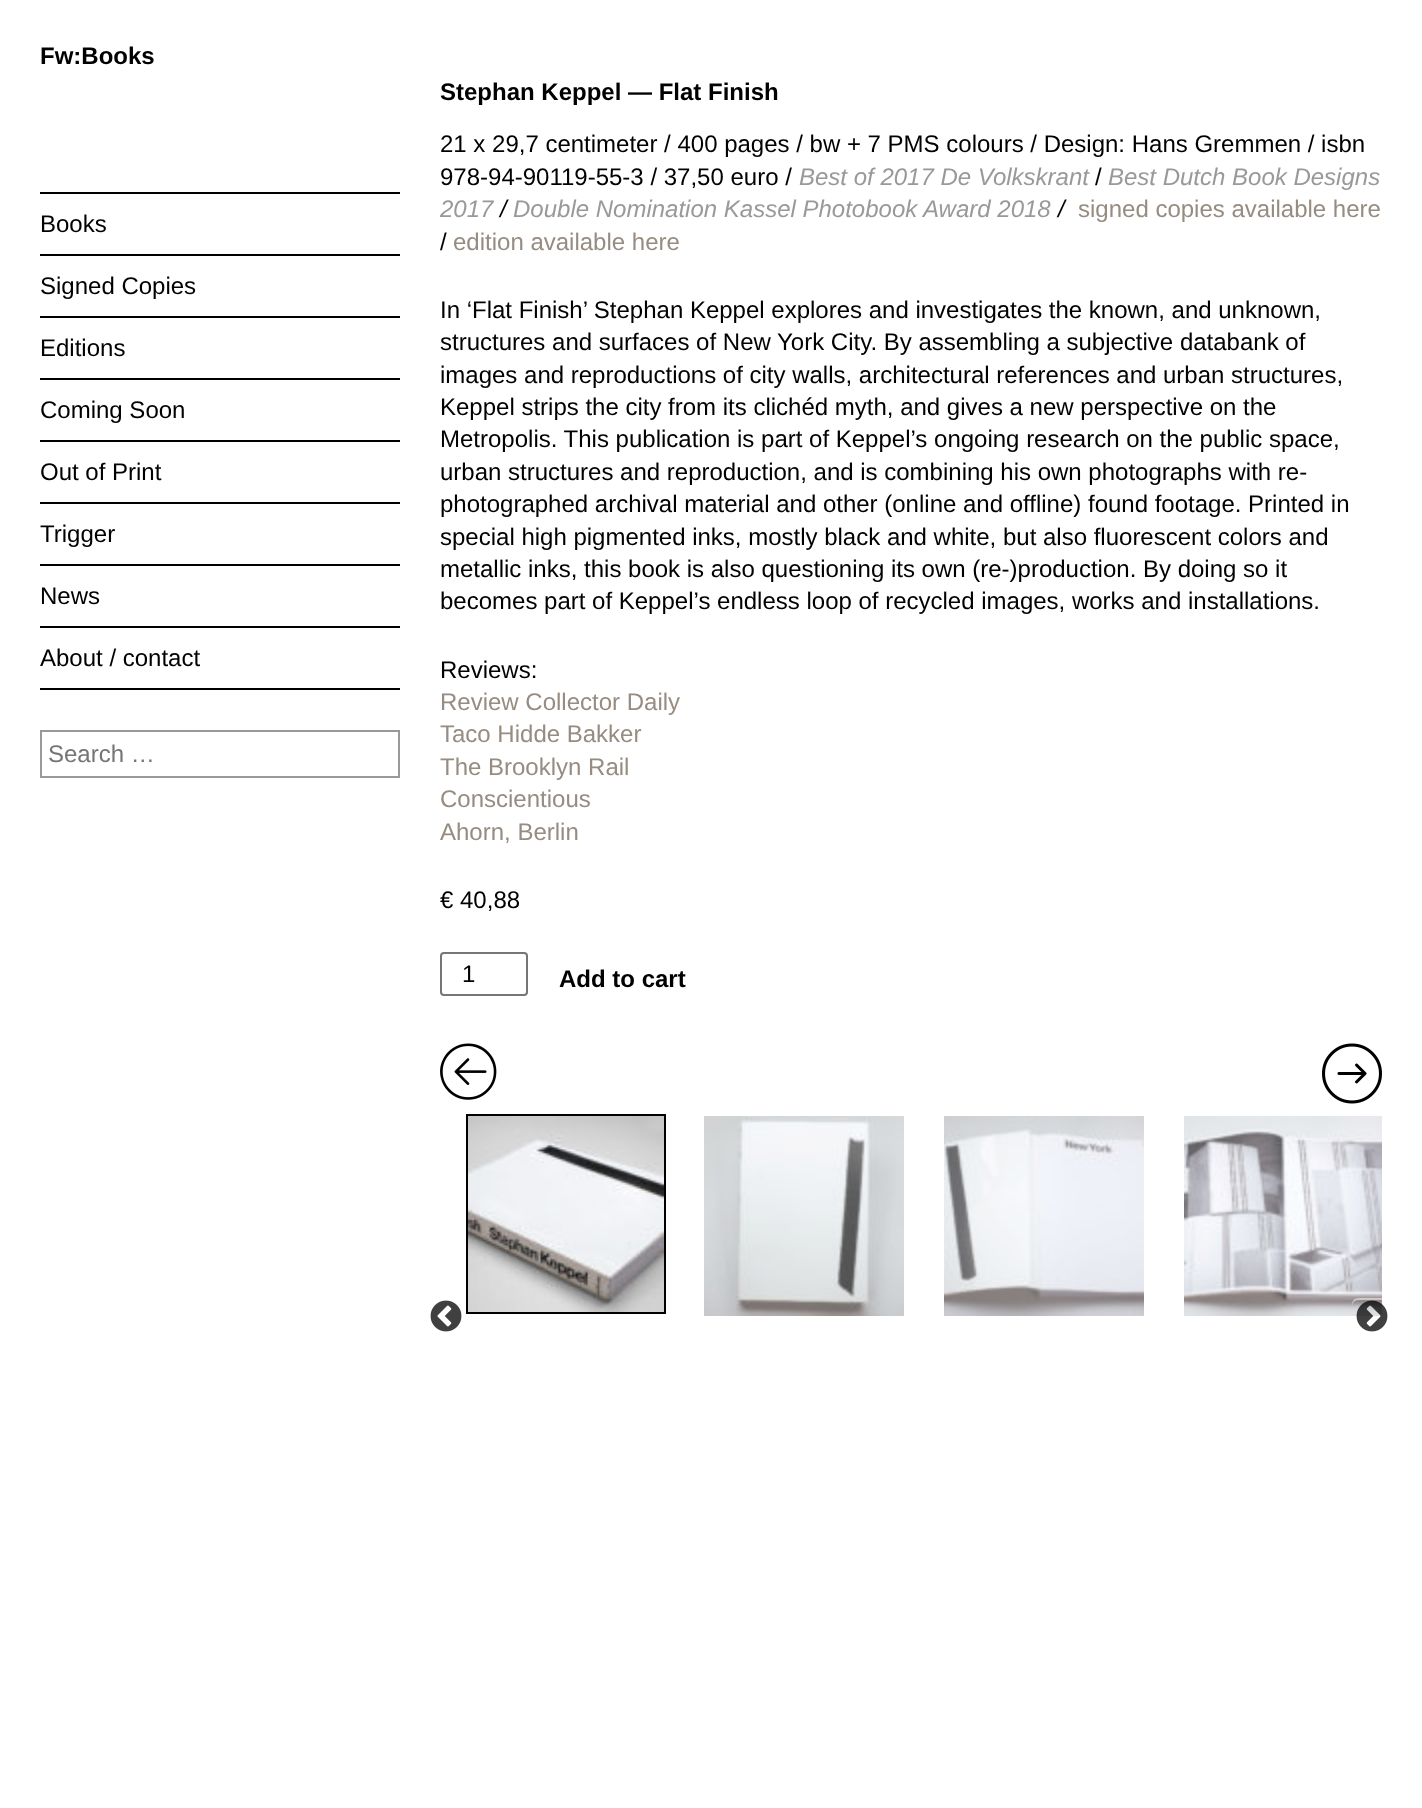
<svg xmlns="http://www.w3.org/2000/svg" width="1422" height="1808">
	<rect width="100%" height="100%" fill="#FFFFFF" />
	<rect x="40" y="192" width="360" height="2" fill="#000000" />
	<text x="40" y="64" font-family="Liberation Sans" font-size="24" font-weight="700" fill="#000000">Fw:Books</text>
	<rect x="40" y="254" width="360" height="2" fill="#000000" />
	<text x="40" y="232" font-family="Liberation Sans" font-size="24" fill="#000000">Books</text>
	<rect x="40" y="316" width="360" height="2" fill="#000000" />
	<text x="40" y="294" font-family="Liberation Sans" font-size="24" fill="#000000">Signed Copies</text>
	<rect x="40" y="378" width="360" height="2" fill="#000000" />
	<text x="40" y="356" font-family="Liberation Sans" font-size="24" fill="#000000">Editions</text>
	<rect x="40" y="440" width="360" height="2" fill="#000000" />
	<text x="40" y="418" font-family="Liberation Sans" font-size="24" fill="#000000">Coming Soon</text>
	<rect x="40" y="502" width="360" height="2" fill="#000000" />
	<text x="40" y="480" font-family="Liberation Sans" font-size="24" fill="#000000">Out of Print</text>
	<rect x="40" y="564" width="360" height="2" fill="#000000" />
	<text x="40" y="542" font-family="Liberation Sans" font-size="24" fill="#000000">Trigger</text>
	<rect x="40" y="626" width="360" height="2" fill="#000000" />
	<text x="40" y="604" font-family="Liberation Sans" font-size="24" fill="#000000">News</text>
	<rect x="40" y="688" width="360" height="2" fill="#000000" />
	<text x="40" y="666" font-family="Liberation Sans" font-size="24" fill="#000000">About / contact</text>
	<rect x="41" y="731" width="358" height="46" fill="none" stroke="#999999" stroke-width="2" />
	<text x="48" y="762" font-family="Liberation Sans" font-size="24" fill="#757575">Search …</text>
	<text x="440" y="100" font-family="Liberation Sans" font-size="24" font-weight="700" fill="#000000">Stephan Keppel — Flat Finish</text>
	<g font-family="Liberation Sans" font-size="24" fill="#000000">
		<text x="440" y="152">21 x 29,7 centimeter / 400 pages / bw + 7 PMS colours / Design: Hans Gremmen / isbn</text>
		<text x="440" y="185">978-94-90119-55-3 / 37,50 euro /</text>
	</g>
	<text x="799" y="185" font-family="Liberation Sans" font-size="24" font-style="italic" fill="#999999">Best of 2017 De Volkskrant</text>
	<text x="1095" y="185" font-family="Liberation Sans" font-size="24" fill="#000000">/</text>
	<g font-family="Liberation Sans" font-size="24" font-style="italic" fill="#999999">
		<text x="1108" y="185">Best Dutch Book Designs</text>
		<text x="440" y="217">2017</text>
	</g>
	<text x="500" y="217" font-family="Liberation Sans" font-size="24" font-style="italic" fill="#000000">/</text>
	<text x="513" y="217" font-family="Liberation Sans" font-size="24" font-style="italic" fill="#999999">Double Nomination Kassel Photobook Award 2018</text>
	<text x="1058" y="217" font-family="Liberation Sans" font-size="24" font-style="italic" fill="#000000">/</text>
	<text x="1078" y="217" font-family="Liberation Sans" font-size="24" fill="#978C81">signed copies available here</text>
	<text x="440" y="250" font-family="Liberation Sans" font-size="24" fill="#000000">/</text>
	<text x="453" y="250" font-family="Liberation Sans" font-size="24" fill="#978C81">edition available here</text>
	<g font-family="Liberation Sans" font-size="24" fill="#000000">
		<text x="440" y="318">In ‘Flat Finish’ Stephan Keppel explores and investigates the known, and unknown,</text>
		<text x="440" y="350">structures and surfaces of New York City. By assembling a subjective databank of</text>
		<text x="440" y="383">images and reproductions of city walls, architectural references and urban structures,</text>
		<text x="440" y="415">Keppel strips the city from its clichéd myth, and gives a new perspective on the</text>
		<text x="440" y="447">Metropolis. This publication is part of Keppel’s ongoing research on the public space,</text>
		<text x="440" y="480">urban structures and reproduction, and is combining his own photographs with re-</text>
		<text x="440" y="512">photographed archival material and other (online and offline) found footage. Printed in</text>
		<text x="440" y="545">special high pigmented inks, mostly black and white, but also fluorescent colors and</text>
		<text x="440" y="577">metallic inks, this book is also questioning its own (re-)production. By doing so it</text>
		<text x="440" y="609">becomes part of Keppel’s endless loop of recycled images, works and installations.</text>
		<text x="440" y="678">Reviews:</text>
	</g>
	<g font-family="Liberation Sans" font-size="24" fill="#978C81">
		<text x="440" y="710">Review Collector Daily</text>
		<text x="440" y="742">Taco Hidde Bakker</text>
		<text x="440" y="775">The Brooklyn Rail</text>
		<text x="440" y="807">Conscientious</text>
		<text x="440" y="840">Ahorn, Berlin</text>
	</g>
	<text x="440" y="908" font-family="Liberation Sans" font-size="24" fill="#000000">€ 40,88</text>
	<rect x="441" y="953" width="86" height="42" rx="3" fill="none" stroke="#767676" stroke-width="2" />
	<text x="462" y="982" font-family="Liberation Sans" font-size="24" fill="#000000">1</text>
	<text x="559" y="987" font-family="Liberation Sans" font-size="24" font-weight="700" fill="#000000">Add to cart</text>
	<image x="440" y="1043" width="57" height="57" href="assets/img1.png" />
	<image x="1322" y="1043" width="60" height="61" href="assets/img2.png" />
	<rect x="467" y="1115" width="198" height="198" fill="none" stroke="#000000" stroke-width="2" />
	<image x="468" y="1116" width="196" height="196" href="assets/img3.png" />
	<image x="704" y="1116" width="200" height="200" href="assets/img4.png" />
	<image x="944" y="1116" width="200" height="200" href="assets/img5.png" />
	<image x="1184" y="1116" width="198" height="200" href="assets/img6.png" />
	<image x="430" y="1300" width="32" height="32" href="assets/img7.png" />
	<path d="M1358 1300H1386C1389 1300 1392 1303 1392 1306C1392 1298 1388 1298 1381 1298H1363C1356 1298 1352 1298 1352 1306C1352 1303 1355 1300 1358 1300Z" fill="#FFFFFF" fill-opacity="0.5" />
	<image x="1356" y="1300" width="32" height="32" href="assets/img8.png" />
</svg>
